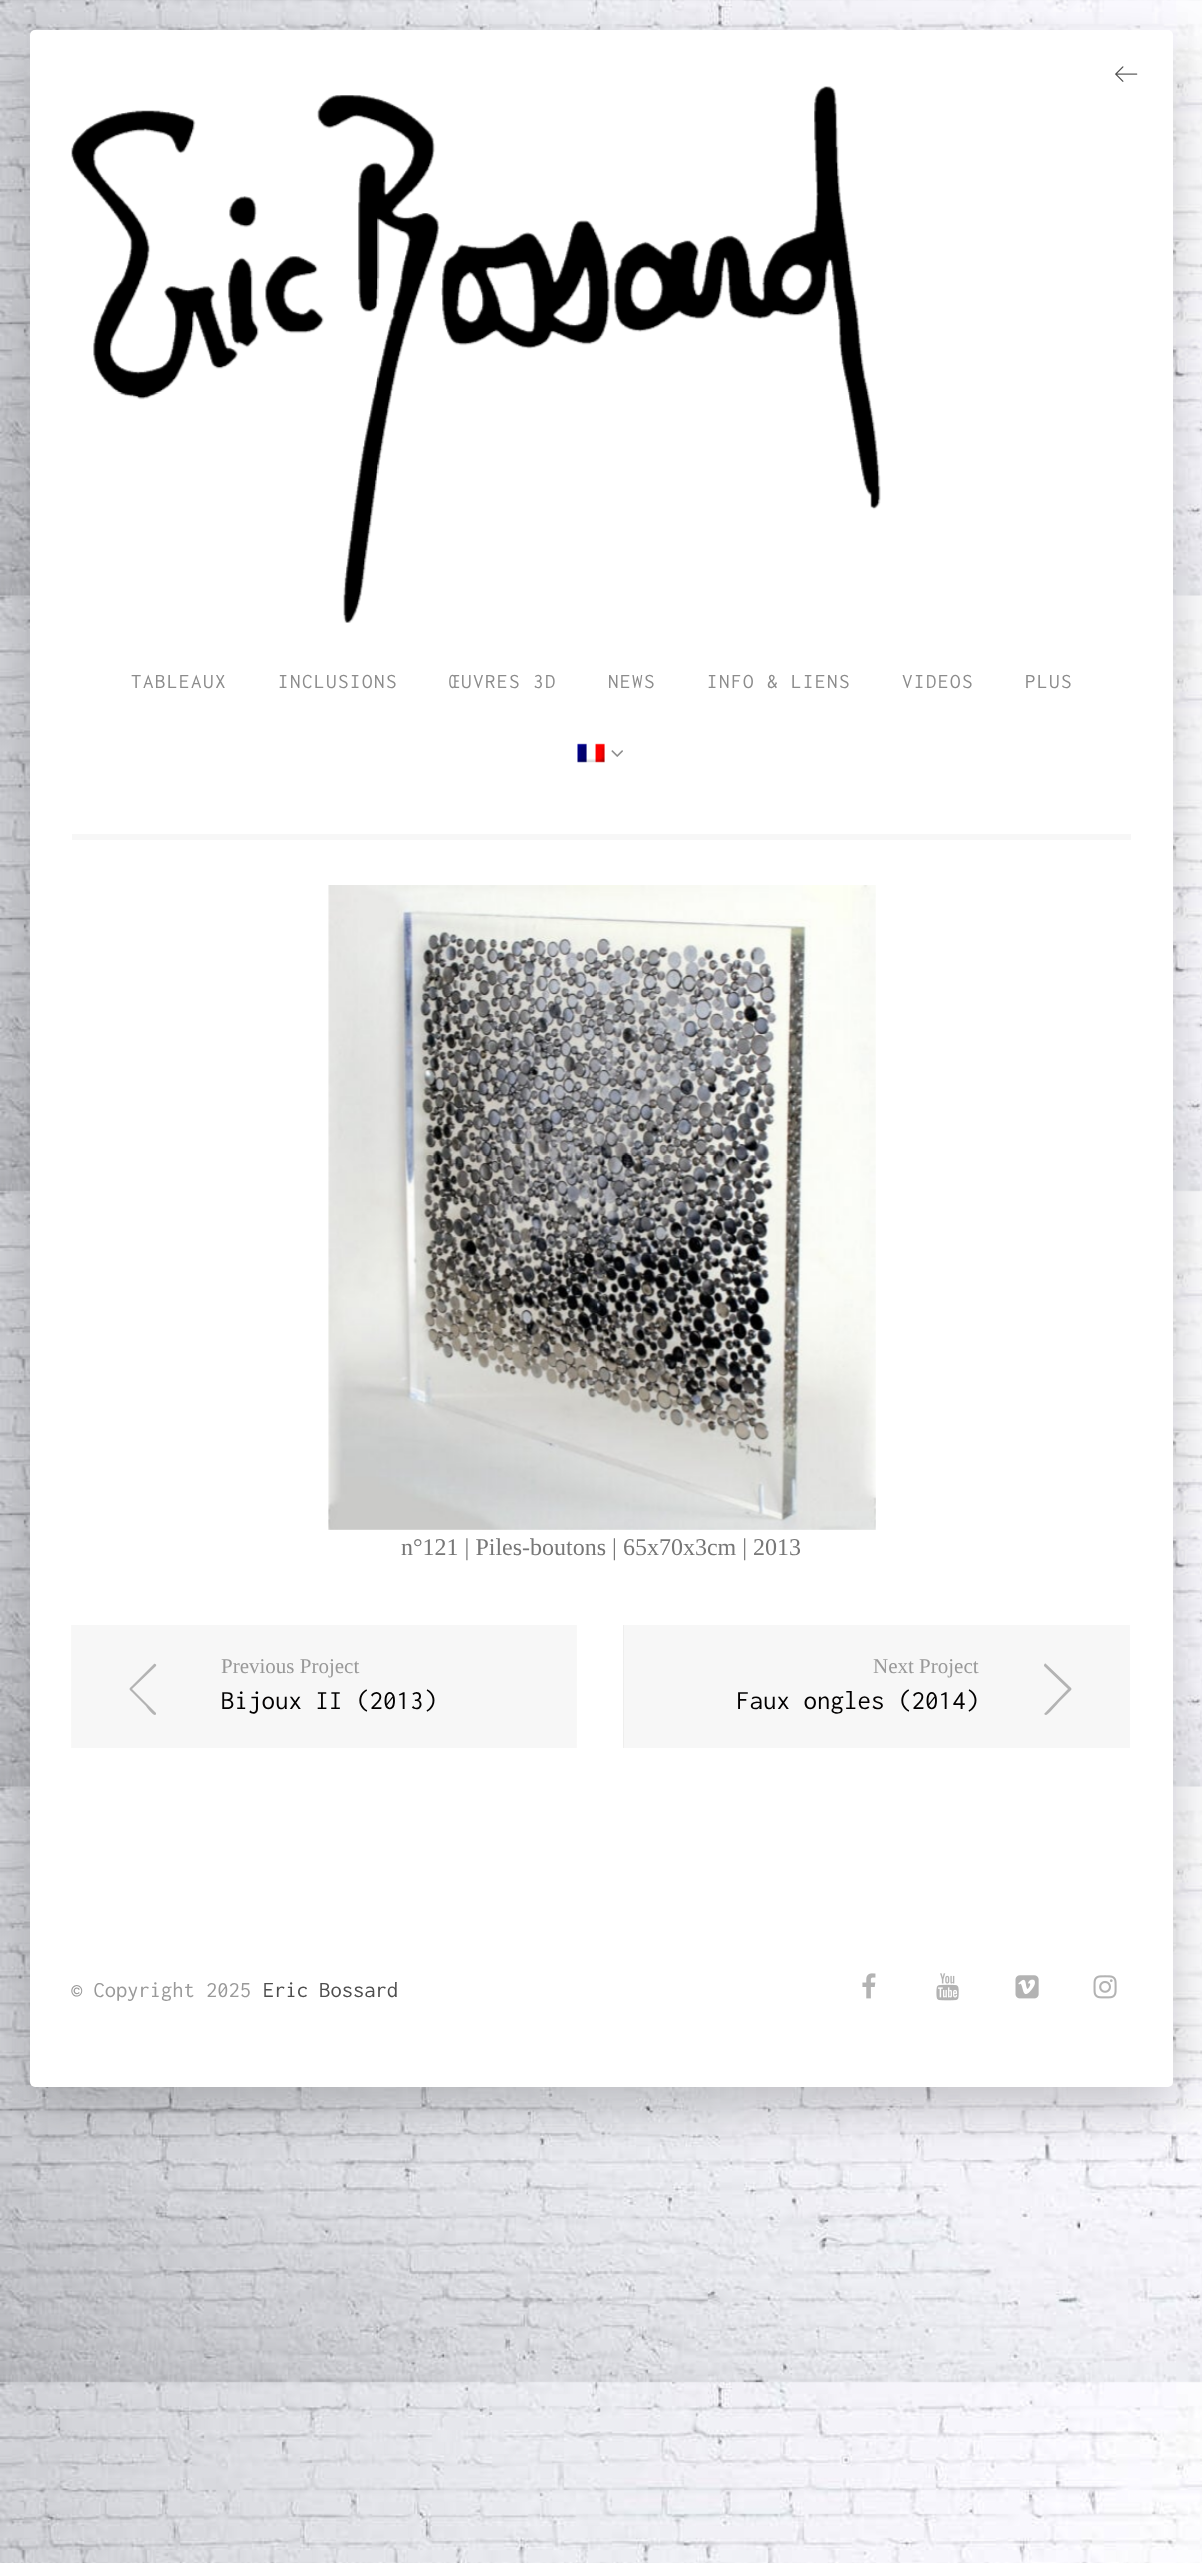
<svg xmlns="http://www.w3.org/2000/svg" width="1202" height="2563">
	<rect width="100%" height="100%" fill="#FFFFFF" />
	<image x="0" y="0" width="1202" height="2563" href="assets/img1.png" />
	<rect x="30" y="53" width="1143" height="2056" rx="5" fill="#000000" fill-opacity="0.2" filter="blur(26px)" />
	<rect x="30" y="30" width="1143" height="2057" rx="5" fill="#FFFFFF" />
	<image x="1115" y="66" width="23" height="16" href="assets/img2.png" />
	<image x="71" y="86" width="810" height="537" href="assets/img3.png" />
	<g font-family="Inconsolata" font-size="21" letter-spacing="1.5" fill="#8C8C8C">
		<text x="131" y="688">TABLEAUX</text>
		<text x="278" y="688">INCLUSIONS</text>
		<text x="449" y="688">ŒUVRES 3D</text>
		<text x="608" y="688">NEWS</text>
		<text x="707" y="688">INFO &amp; LIENS</text>
		<text x="902" y="688">VIDEOS</text>
		<text x="1025" y="688">PLUS</text>
	</g>
	<image x="577" y="743" width="28" height="20" href="assets/img4.png" />
	<image x="611" y="750" width="12" height="7" href="assets/img5.png" />
	<rect x="72" y="834" width="1059" height="6" fill="#F7F7F7" />
	<image x="328" y="885" width="548" height="645" href="assets/img6.png" />
	<text x="401" y="1555" font-family="Liberation Serif" font-size="24" fill="#777777">n°121 | Piles-boutons | 65x70x3cm | 2013</text>
	<image x="71" y="1625" width="506" height="123" href="assets/img7.png" />
	<rect x="72" y="1625" width="504" height="123" fill="#F7F7F7" />
	<path d="M155 1715C156 1715 156 1714 156 1713L132 1689L156 1666C157 1665 155 1663 154 1664L134 1684C128 1690 128 1688 134 1694L146 1706C147 1708 153 1715 155 1715Z" fill="#B3B3B3" />
	<text x="221" y="1673" font-family="Liberation Serif" font-size="21" fill="#999999">Previous Project</text>
	<text x="221" y="1709" font-family="Inconsolata" font-size="27" fill="#020000">Bijoux II (2013)</text>
	<image x="623" y="1625" width="1" height="123" href="assets/img8.png" />
	<rect x="624" y="1625" width="506" height="123" fill="#F7F7F7" />
	<text x="873" y="1673" font-family="Liberation Serif" font-size="21" fill="#999999">Next Project</text>
	<path d="M1046 1715C1044 1715 1044 1713 1045 1713L1068 1689L1044 1666C1044 1664 1045 1663 1046 1664L1067 1684C1073 1690 1073 1688 1067 1694L1059 1702C1057 1704 1048 1715 1046 1715Z" fill="#B3B3B3" />
	<text x="736" y="1709" font-family="Inconsolata" font-size="27" fill="#020000">Faux ongles (2014)</text>
	<text x="71" y="1997" font-family="Inconsolata" font-size="22.5" fill="#999999">© Copyright 2025</text>
	<text x="263" y="1997" font-family="Inconsolata" font-size="22.5" fill="#4D4D4D">Eric Bossard</text>
	<image x="862" y="1973" width="14" height="26" href="assets/img9.png" />
	<image x="936" y="1973" width="23" height="28" href="assets/img10.png" />
	<image x="1015" y="1975" width="24" height="24" href="assets/img11.png" />
	<image x="1093" y="1975" width="24" height="24" href="assets/img12.png" />
</svg>
